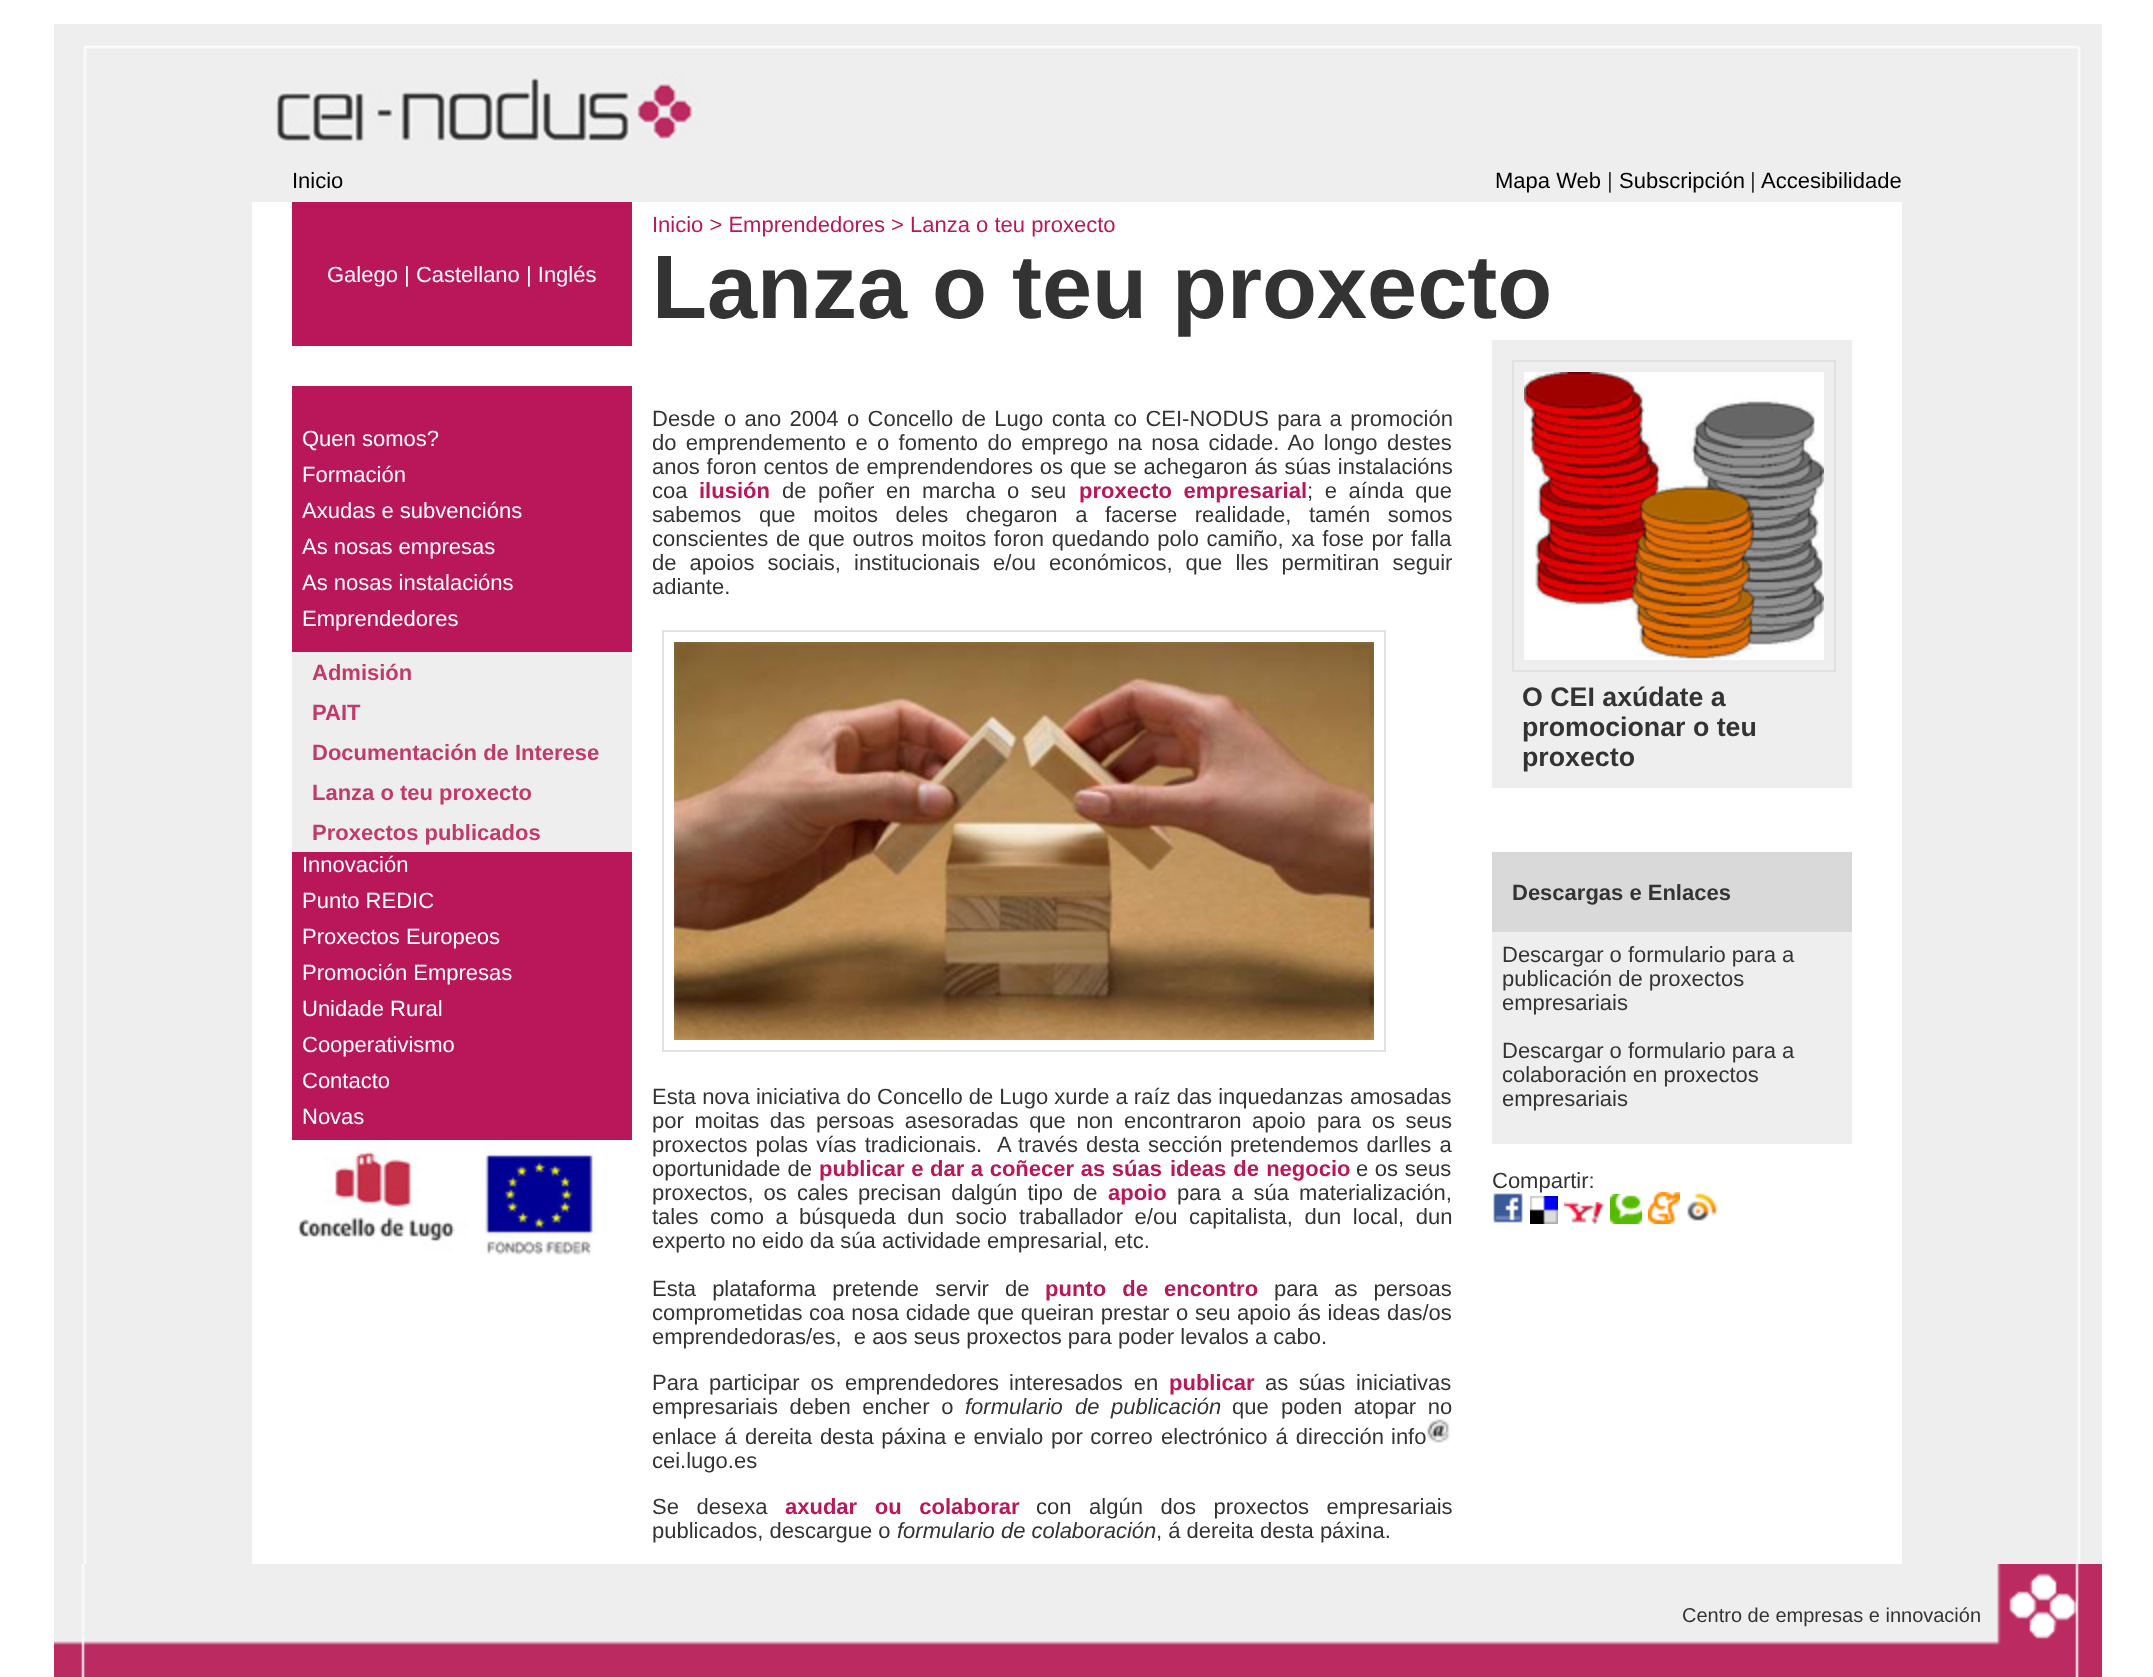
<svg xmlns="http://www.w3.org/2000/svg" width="2153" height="1677">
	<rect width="100%" height="100%" fill="#FFFFFF" />
	<image x="54" y="24" width="2048" height="34" href="assets/img1.png" />
	<image x="54" y="58" width="2048" height="1506" href="assets/img2.png" />
	<image x="276" y="75" width="423" height="67" href="assets/img3.png" />
	<g font-family="Liberation Sans" font-size="22" fill="#000000">
		<text x="292" y="188">Inicio</text>
		<text x="1495" y="188">Mapa Web</text>
	</g>
	<text x="1607" y="188" font-family="Liberation Sans" font-size="22" fill="#333333">|</text>
	<text x="1619" y="188" font-family="Liberation Sans" font-size="22" fill="#000000">Subscripción</text>
	<text x="1750" y="188" font-family="Liberation Sans" font-size="22" fill="#333333">|</text>
	<text x="1761" y="188" font-family="Liberation Sans" font-size="22" fill="#000000">Accesibilidade</text>
	<rect x="252" y="202" width="1650" height="1362" fill="#FFFFFF" />
	<rect x="292" y="202" width="340" height="938" fill="#BA175B" />
	<text x="327" y="282" font-family="Liberation Sans" font-size="22" fill="#FFFFFF">Galego | Castellano | Inglés</text>
	<rect x="292" y="346" width="340" height="40" fill="#FFFFFF" />
	<g font-family="Liberation Sans" font-size="22" fill="#FFFFFF">
		<text x="302" y="446">Quen somos?</text>
		<text x="302" y="482">Formación</text>
		<text x="302" y="518">Axudas e subvencións</text>
		<text x="302" y="554">As nosas empresas</text>
		<text x="302" y="590">As nosas instalacións</text>
		<text x="302" y="626">Emprendedores</text>
	</g>
	<rect x="292" y="652" width="340" height="200" fill="#EEEEEE" />
	<g font-family="Liberation Sans" font-size="22" font-weight="700" fill="#C03A6C">
		<text x="312" y="680">Admisión</text>
		<text x="312" y="720">PAIT</text>
		<text x="312" y="760">Documentación de Interese</text>
		<text x="312" y="800">Lanza o teu proxecto</text>
		<text x="312" y="840">Proxectos publicados</text>
	</g>
	<g font-family="Liberation Sans" font-size="22" fill="#FFFFFF">
		<text x="302" y="872">Innovación</text>
		<text x="302" y="908">Punto REDIC</text>
		<text x="302" y="944">Proxectos Europeos</text>
		<text x="302" y="980">Promoción Empresas</text>
		<text x="302" y="1016">Unidade Rural</text>
		<text x="302" y="1052">Cooperativismo</text>
		<text x="302" y="1088">Contacto</text>
		<text x="302" y="1124">Novas</text>
	</g>
	<image x="297" y="1140" width="299" height="115" href="assets/img4.png" />
	<text x="652" y="232" font-family="Liberation Sans" font-size="22" fill="#BA175B">Inicio &gt; Emprendedores &gt; Lanza o teu proxecto</text>
	<text x="652" y="318" font-family="Liberation Sans" font-size="90" font-weight="700" fill="#333333">Lanza o teu proxecto</text>
	<g font-family="Liberation Sans" font-size="22" fill="#333333">
		<text x="652" y="426" word-spacing="2.25">Desde o ano 2004 o Concello de Lugo conta co CEI-NODUS para a promoción</text>
		<text x="652" y="450" word-spacing="3.25">do emprendemento e o fomento do emprego na nosa cidade. Ao longo destes</text>
		<text x="652" y="474" word-spacing="0.75">anos foron centos de emprendendores os que se achegaron ás súas instalacións</text>
		<text x="652" y="498">coa</text>
	</g>
	<text x="699" y="498" font-family="Liberation Sans" font-size="22" font-weight="700" fill="#BA175B">ilusión</text>
	<text x="782" y="498" word-spacing="5.5" font-family="Liberation Sans" font-size="22" fill="#333333">de poñer en marcha o seu</text>
	<text x="1079" y="498" word-spacing="5.5" font-family="Liberation Sans" font-size="22" font-weight="700" fill="#BA175B">proxecto empresarial</text>
	<g font-family="Liberation Sans" font-size="22" fill="#333333">
		<text x="1307" y="498" word-spacing="5.5">; e aínda que</text>
		<text x="652" y="522" word-spacing="11.5">sabemos que moitos deles chegaron a facerse realidade, tamén somos</text>
		<text x="652" y="546" word-spacing="1.6">conscientes de que outros moitos foron quedando polo camiño, xa fose por falla</text>
		<text x="652" y="570" word-spacing="7">de apoios sociais, institucionais e/ou económicos, que lles permitiran seguir</text>
		<text x="652" y="594">adiante.</text>
	</g>
	<rect x="663" y="631" width="722" height="420" fill="none" stroke="#E1E1E1" stroke-width="2" />
	<image x="674" y="642" width="700" height="398" href="assets/img5.png" />
	<g font-family="Liberation Sans" font-size="22" fill="#333333">
		<text x="652" y="1104">Esta nova iniciativa do Concello de Lugo xurde a raíz das inquedanzas</text>
		<text x="1350" y="1104">amosadas</text>
		<text x="652" y="1128" word-spacing="4.5">por moitas das persoas asesoradas que non</text>
		<text x="1124" y="1128" word-spacing="4.5">encontraron apoio</text>
		<text x="1317" y="1128" word-spacing="4.5">para os seus</text>
		<text x="652" y="1152" word-spacing="2" xml:space="preserve">proxectos polas vías tradicionais.  A</text>
		<text x="1018" y="1152" word-spacing="2">través desta sección</text>
		<text x="1230" y="1152" word-spacing="2">pretendemos darlles a</text>
		<text x="652" y="1176" word-spacing="1">oportunidade de</text>
	</g>
	<g font-family="Liberation Sans" font-size="22" font-weight="700" fill="#BA175B">
		<text x="819" y="1176" word-spacing="0.5">publicar e</text>
		<text x="930" y="1176" word-spacing="0.5">dar a coñecer as súas</text>
		<text x="1170" y="1176" word-spacing="1">ideas de negocio</text>
	</g>
	<g font-family="Liberation Sans" font-size="22" fill="#333333">
		<text x="1356" y="1176" word-spacing="0.5">e os seus</text>
		<text x="652" y="1200" word-spacing="4">proxectos, os cales</text>
		<text x="858" y="1200" word-spacing="4">precisan dalgún tipo de</text>
	</g>
	<text x="1108" y="1200" font-family="Liberation Sans" font-size="22" font-weight="700" fill="#BA175B">apoio</text>
	<g font-family="Liberation Sans" font-size="22" fill="#333333">
		<text x="1177" y="1200" word-spacing="4">para a súa materialización,</text>
		<text x="652" y="1224" word-spacing="5.5">tales como a</text>
		<text x="799" y="1224" word-spacing="5.5">búsqueda dun socio</text>
		<text x="1019" y="1224" word-spacing="5.5">traballador e/ou capitalista, dun local, dun</text>
		<text x="652" y="1248">experto no eido da súa actividade empresarial, etc.</text>
		<text x="652" y="1296" word-spacing="10">Esta plataforma pretende servir de</text>
	</g>
	<text x="1045" y="1296" word-spacing="10" font-family="Liberation Sans" font-size="22" font-weight="700" fill="#BA175B">punto de encontro</text>
	<g font-family="Liberation Sans" font-size="22" fill="#333333">
		<text x="1274" y="1296" word-spacing="10">para as persoas</text>
		<text x="652" y="1320" word-spacing="0.6">comprometidas coa nosa cidade que queiran prestar o seu apoio ás ideas</text>
		<text x="1387" y="1320">das/os</text>
		<text x="652" y="1344" xml:space="preserve">emprendedoras/es,  e aos seus proxectos para poder levalos a cabo.</text>
		<text x="652" y="1390">Para</text>
		<text x="709" y="1390" word-spacing="5">participar os emprendedores</text>
		<text x="1009" y="1390" word-spacing="5">interesados en</text>
	</g>
	<text x="1169" y="1390" font-family="Liberation Sans" font-size="22" font-weight="700" fill="#BA175B">publicar</text>
	<g font-family="Liberation Sans" font-size="22" fill="#333333">
		<text x="1265" y="1390" word-spacing="4.5">as súas iniciativas</text>
		<text x="652" y="1414" word-spacing="5.5">empresariais deben encher o</text>
	</g>
	<g font-family="Liberation Sans" font-size="22" font-style="italic" fill="#333333">
		<text x="965" y="1414">formulario</text>
		<text x="1075" y="1414" word-spacing="5.5">de publicación</text>
	</g>
	<g font-family="Liberation Sans" font-size="22" fill="#333333">
		<text x="1232" y="1414">que</text>
		<text x="1281" y="1414" word-spacing="5.5">poden atopar no</text>
		<text x="652" y="1444" word-spacing="1.5">enlace á</text>
		<text x="745" y="1444" word-spacing="1.5">dereita desta páxina e envialo por correo</text>
		<text x="1161" y="1444" word-spacing="2">electrónico á dirección</text>
		<text x="1391" y="1444">info</text>
	</g>
	<image x="1427" y="1419" width="24" height="24" href="assets/img6.png" />
	<g font-family="Liberation Sans" font-size="22" fill="#333333">
		<text x="652" y="1468">cei.lugo.es</text>
		<text x="652" y="1514" word-spacing="11.5">Se desexa</text>
	</g>
	<text x="785" y="1514" word-spacing="11.5" font-family="Liberation Sans" font-size="22" font-weight="700" fill="#BA175B">axudar ou colaborar</text>
	<g font-family="Liberation Sans" font-size="22" fill="#333333">
		<text x="1036" y="1514" word-spacing="11.5">con algún dos proxectos empresariais</text>
		<text x="652" y="1538">publicados, descargue o</text>
	</g>
	<text x="897" y="1538" font-family="Liberation Sans" font-size="22" font-style="italic" fill="#333333">formulario de colaboración</text>
	<text x="1156" y="1538" font-family="Liberation Sans" font-size="22" fill="#333333">, á dereita desta páxina.</text>
	<rect x="1492" y="340" width="360" height="448" fill="#EEEEEE" />
	<rect x="1513" y="361" width="322" height="310" fill="none" stroke="#E1E1E1" stroke-width="2" />
	<image x="1524" y="372" width="300" height="288" href="assets/img7.png" />
	<g font-family="Liberation Sans" font-size="26.75" font-weight="700" fill="#333333">
		<text x="1522" y="706">O CEI axúdate a</text>
		<text x="1522" y="736">promocionar o teu</text>
		<text x="1522" y="766">proxecto</text>
	</g>
	<rect x="1492" y="852" width="360" height="80" fill="#D9D9D9" />
	<text x="1512" y="900" font-family="Liberation Sans" font-size="22" font-weight="700" fill="#333333">Descargas e Enlaces</text>
	<rect x="1492" y="932" width="360" height="212" fill="#EEEEEE" />
	<g font-family="Liberation Sans" font-size="22" fill="#333333">
		<text x="1502" y="962">Descargar o formulario para a</text>
		<text x="1502" y="986">publicación de proxectos</text>
		<text x="1502" y="1010">empresariais</text>
		<text x="1502" y="1058">Descargar o formulario para a</text>
		<text x="1502" y="1082">colaboración en proxectos</text>
		<text x="1502" y="1106">empresariais</text>
		<text x="1492" y="1188">Compartir:</text>
	</g>
	<image x="1493" y="1193" width="30" height="30" href="assets/img8.png" />
	<image x="1530" y="1196" width="28" height="28" href="assets/img9.png" />
	<image x="1564" y="1202" width="40" height="22" href="assets/img10.png" />
	<image x="1610" y="1194" width="32" height="30" href="assets/img11.png" />
	<image x="1648" y="1192" width="32" height="32" href="assets/img12.png" />
	<image x="1687" y="1193" width="30" height="28" href="assets/img13.png" />
	<image x="54" y="1564" width="2048" height="113" href="assets/img14.png" />
	<text x="1682" y="1622" font-family="Liberation Sans" font-size="20" fill="#333333">Centro de empresas e innovación</text>
</svg>
